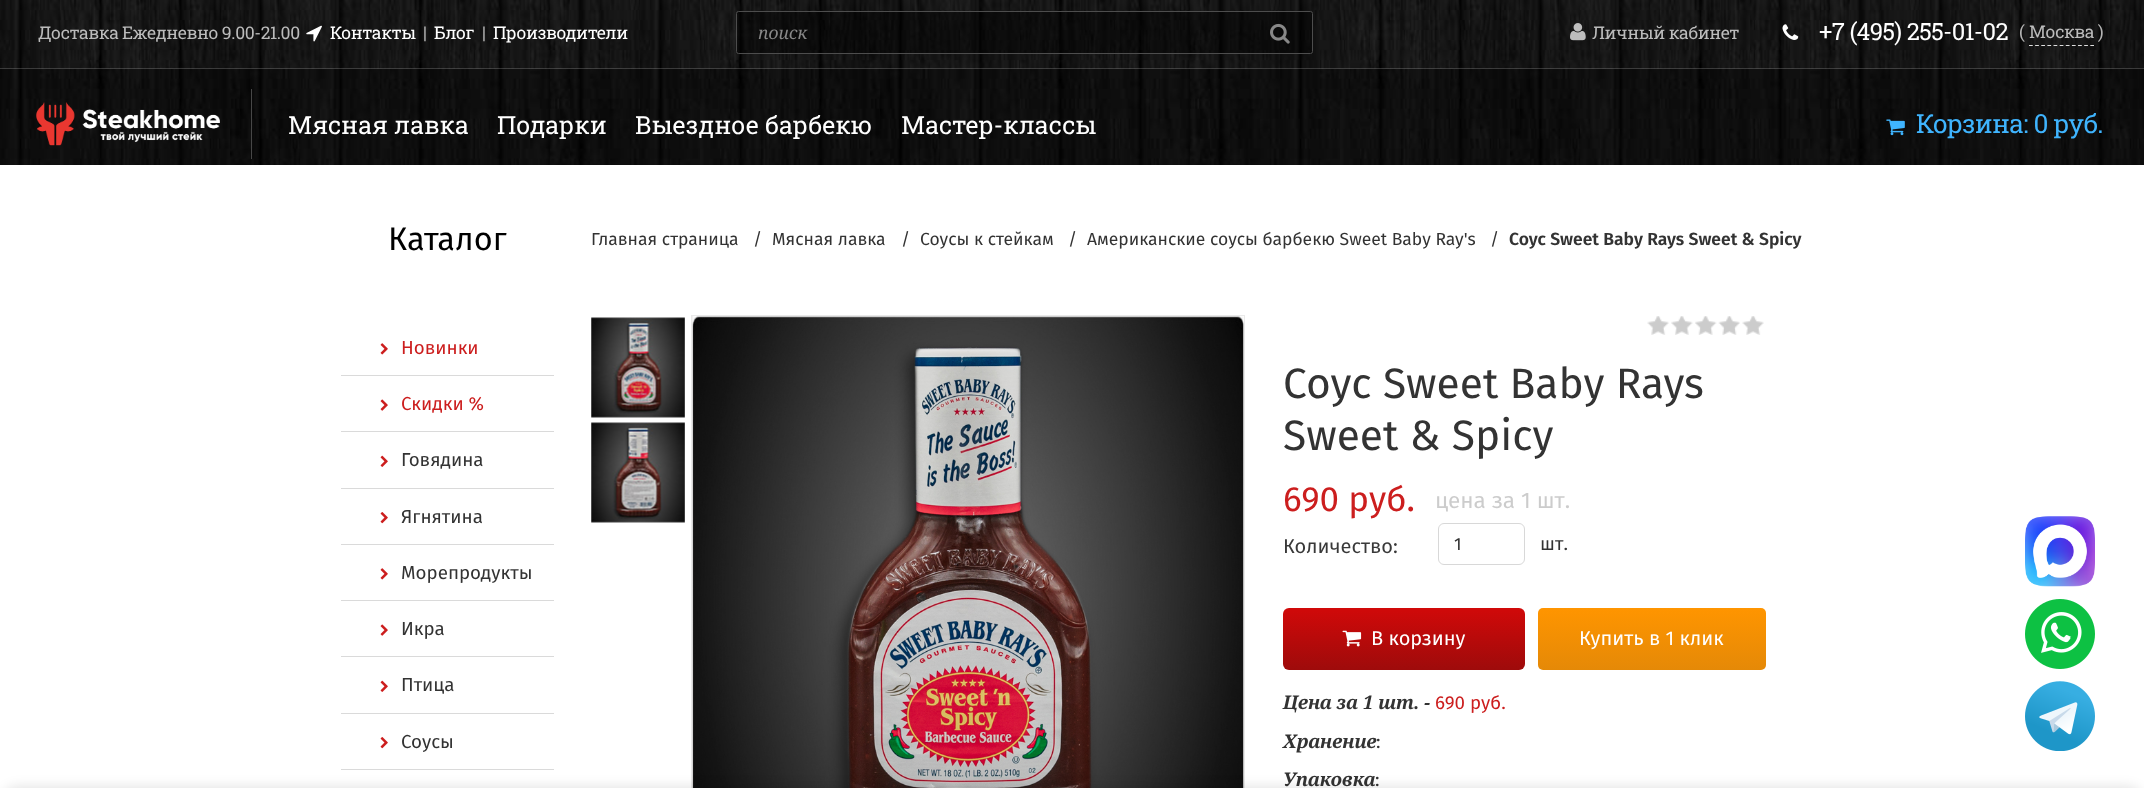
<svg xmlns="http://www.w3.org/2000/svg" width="2144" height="788">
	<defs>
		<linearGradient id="g1" gradientUnits="userSpaceOnUse" x1="1404" y1="608" x2="1404" y2="670"><stop offset="0" stop-color="#D10909" /><stop offset="1" stop-color="#9E0B0B" /></linearGradient>
		<linearGradient id="g2" gradientUnits="userSpaceOnUse" x1="1652" y1="608" x2="1652" y2="670"><stop offset="0" stop-color="#FF9500" /><stop offset="1" stop-color="#E58907" /></linearGradient>
	</defs>
	<rect width="100%" height="100%" fill="#FFFFFF" />
	<image x="0" y="0" width="2144" height="69" href="assets/img1.png" />
	<g font-family="Roboto Slab" font-size="17.5" letter-spacing="-0.4" fill="#BBBBBB">
		<text x="38" y="39">Доставка</text>
		<text x="122" y="39">Ежедневно 9.00-21.00</text>
	</g>
	<image x="306" y="25" width="16" height="17" href="assets/img2.png" />
	<text x="330" y="39" font-family="Roboto Slab" font-size="17.5" letter-spacing="-0.4" fill="#FFFFFF">Контакты</text>
	<text x="423" y="39" font-family="Roboto Slab" font-size="17.5" letter-spacing="-0.4" fill="#BBBBBB">|</text>
	<text x="434" y="39" font-family="Roboto Slab" font-size="17.5" letter-spacing="-0.4" fill="#FFFFFF">Блог</text>
	<text x="482" y="39" font-family="Roboto Slab" font-size="17.5" letter-spacing="-0.4" fill="#BBBBBB">|</text>
	<text x="493" y="39" font-family="Roboto Slab" font-size="17.5" letter-spacing="-0.4" fill="#FFFFFF">Производители</text>
	<rect x="736.5" y="11.5" width="576" height="42" rx="2" fill="#000000" fill-opacity="0.4" stroke="#4D4D4D" />
	<text x="758" y="39" font-family="Noto Serif" font-size="17.5" font-style="italic" fill="#888888">поиск</text>
	<image x="1270" y="23" width="20" height="21" href="assets/img3.png" />
	<image x="1570" y="23" width="16" height="18" href="assets/img4.png" />
	<text x="1592" y="39" font-family="Roboto Slab" font-size="17.5" letter-spacing="-0.4" fill="#BBBBBB">Личный кабинет</text>
	<image x="1782" y="24" width="17" height="16" href="assets/img5.png" />
	<text x="1819" y="40" font-family="Roboto Slab" font-size="23.75" letter-spacing="-0.6" fill="#FFFFFF">+7 (495) 255-01-02</text>
	<text x="2019" y="38" font-family="Roboto Slab" font-size="17.5" fill="#B3B3B3">(</text>
	<path d="M2029 45.5H2094" fill="none" stroke="#DFDFDF" stroke-width="1.2" stroke-dasharray="3.75 2.38" />
	<text x="2029" y="38" font-family="Roboto Slab" font-size="17.5" letter-spacing="-0.4" fill="#BBBBBB">Москва</text>
	<text x="2098" y="38" font-family="Roboto Slab" font-size="17.5" fill="#B3B3B3">)</text>
	<image x="0" y="68" width="2144" height="97" href="assets/img6.png" />
	<rect x="251" y="89" width="1" height="70" fill="#474747" />
	<image x="36" y="102" width="184" height="44" href="assets/img7.png" />
	<g font-family="Roboto Slab" font-size="25" fill="#FFFFFF">
		<text x="288" y="134">Мясная лавка</text>
		<text x="497" y="134">Подарки</text>
		<text x="635" y="134">Выездное барбекю</text>
		<text x="901" y="134">Мастер-классы</text>
	</g>
	<image x="1886" y="119" width="19" height="17" href="assets/img8.png" />
	<text x="1916" y="133" font-family="Roboto Slab" font-size="26.25" letter-spacing="-0.7" fill="#3FB4FE">Корзина: 0 руб.</text>
	<text x="388" y="250" font-family="Fira Sans" font-size="32.5" fill="#000000">Каталог</text>
	<rect x="341" y="375" width="213" height="1" fill="#DADADA" />
	<image x="380" y="343" width="8" height="12" href="assets/img9.png" />
	<text x="401" y="354" font-family="Fira Sans" font-size="18.75" fill="#CC1E1E">Новинки</text>
	<rect x="341" y="431" width="213" height="1" fill="#DADADA" />
	<image x="380" y="399" width="8" height="12" href="assets/img10.png" />
	<text x="401" y="410" font-family="Fira Sans" font-size="18.75" fill="#CC1E1E">Скидки %</text>
	<rect x="341" y="488" width="213" height="1" fill="#DADADA" />
	<image x="380" y="455" width="8" height="12" href="assets/img11.png" />
	<text x="401" y="466" font-family="Fira Sans" font-size="18.75" fill="#333333">Говядина</text>
	<rect x="341" y="544" width="213" height="1" fill="#DADADA" />
	<image x="380" y="512" width="8" height="12" href="assets/img12.png" />
	<text x="401" y="523" font-family="Fira Sans" font-size="18.75" fill="#333333">Ягнятина</text>
	<rect x="341" y="600" width="213" height="1" fill="#DADADA" />
	<image x="380" y="568" width="8" height="12" href="assets/img9.png" />
	<text x="401" y="579" font-family="Fira Sans" font-size="18.75" fill="#333333">Морепродукты</text>
	<rect x="341" y="656" width="213" height="1" fill="#DADADA" />
	<image x="380" y="624" width="8" height="12" href="assets/img10.png" />
	<text x="401" y="635" font-family="Fira Sans" font-size="18.75" fill="#333333">Икра</text>
	<rect x="341" y="713" width="213" height="1" fill="#DADADA" />
	<image x="380" y="680" width="8" height="12" href="assets/img11.png" />
	<text x="401" y="691" font-family="Fira Sans" font-size="18.75" fill="#333333">Птица</text>
	<rect x="341" y="769" width="213" height="1" fill="#DADADA" />
	<image x="380" y="737" width="8" height="12" href="assets/img12.png" />
	<text x="401" y="748" font-family="Fira Sans" font-size="18.75" fill="#333333">Соусы</text>
	<g font-family="Fira Sans" font-size="17.5" fill="#333333">
		<text x="591" y="245">Главная страница</text>
		<text x="753" y="245">/</text>
		<text x="772" y="245">Мясная лавка</text>
		<text x="901" y="245">/</text>
		<text x="920" y="245">Соусы к стейкам</text>
		<text x="1068" y="245">/</text>
		<text x="1087" y="245">Американские соусы барбекю Sweet Baby Ray's</text>
		<text x="1490" y="245">/</text>
	</g>
	<text x="1509" y="245" font-family="Fira Sans" font-size="17.5" font-weight="600" fill="#333333">Соус Sweet Baby Rays Sweet &amp; Spicy</text>
	<image x="591" y="317" width="94" height="101" href="assets/img13.png" />
	<image x="591" y="422" width="94" height="101" href="assets/img14.png" />
	<rect x="692" y="316" width="1" height="472" fill="#EFEEEE" />
	<rect x="691.5" y="315.5" width="553" height="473" fill="none" stroke="#E9E9E9" />
	<image x="692" y="316" width="552" height="472" href="assets/img15.png" />
	<image x="1647" y="316" width="22" height="19" href="assets/img16.png" />
	<image x="1671" y="316" width="22" height="19" href="assets/img17.png" />
	<image x="1695" y="316" width="22" height="19" href="assets/img18.png" />
	<image x="1718" y="316" width="22" height="19" href="assets/img19.png" />
	<image x="1742" y="316" width="22" height="19" href="assets/img20.png" />
	<g font-family="Fira Sans" font-size="42.5" fill="#333333">
		<text x="1283" y="398">Соус Sweet Baby Rays</text>
		<text x="1283" y="450">Sweet &amp; Spicy</text>
	</g>
	<text x="1283" y="511" font-family="Fira Sans" font-size="35" fill="#CC1E1E">690 руб.</text>
	<text x="1435" y="508" font-family="Fira Sans" font-size="22.5" fill="#CCCCCC">цена за 1 шт.</text>
	<text x="1283" y="553" font-family="Fira Sans" font-size="20" fill="#393939">Количество:</text>
	<rect x="1438.5" y="523.5" width="86" height="41" rx="5.5" fill="none" stroke="#D8D8D8" />
	<text x="1454" y="550" font-family="Fira Sans" font-size="17.5" fill="#333333">1</text>
	<text x="1540" y="550" font-family="Fira Sans" font-size="18.75" fill="#333333">шт.</text>
	<rect x="1283" y="608" width="242" height="62" rx="6" fill="url(#g1)" />
	<image x="1342" y="630" width="20" height="17" href="assets/img21.png" />
	<text x="1371" y="645" font-family="Fira Sans" font-size="20" fill="#FFFFFF">В корзину</text>
	<rect x="1538" y="608" width="228" height="62" rx="5" fill="url(#g2)" />
	<text x="1579" y="645" font-family="Fira Sans" font-size="20" fill="#FFFFFF">Купить в 1 клик</text>
	<text x="1283" y="709" font-family="Noto Serif" font-size="18.75" font-weight="700" font-style="italic" fill="#333333">Цена за 1 шт. -</text>
	<text x="1435" y="709" font-family="Fira Sans" font-size="18.75" fill="#CC1E1E">690 руб.</text>
	<text x="1283" y="748" font-family="Noto Serif" font-size="18.75" font-weight="700" font-style="italic" fill="#333333">Хранение</text>
	<text x="1376" y="748" font-family="Fira Sans" font-size="18.75" fill="#333333">:</text>
	<text x="1283" y="786" font-family="Noto Serif" font-size="18.75" font-weight="700" font-style="italic" fill="#333333">Упаковка</text>
	<text x="1375" y="786" font-family="Fira Sans" font-size="18.75" fill="#333333">:</text>
	<image x="2025" y="516" width="70" height="71" href="assets/img22.png" />
	<image x="2025" y="599" width="70" height="70" href="assets/img23.png" />
	<image x="2025" y="681" width="70" height="70" href="assets/img24.png" />
	<rect x="0" y="786" width="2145" height="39" rx="19" fill="#000000" fill-opacity="0.1" filter="blur(6px)" />
</svg>
